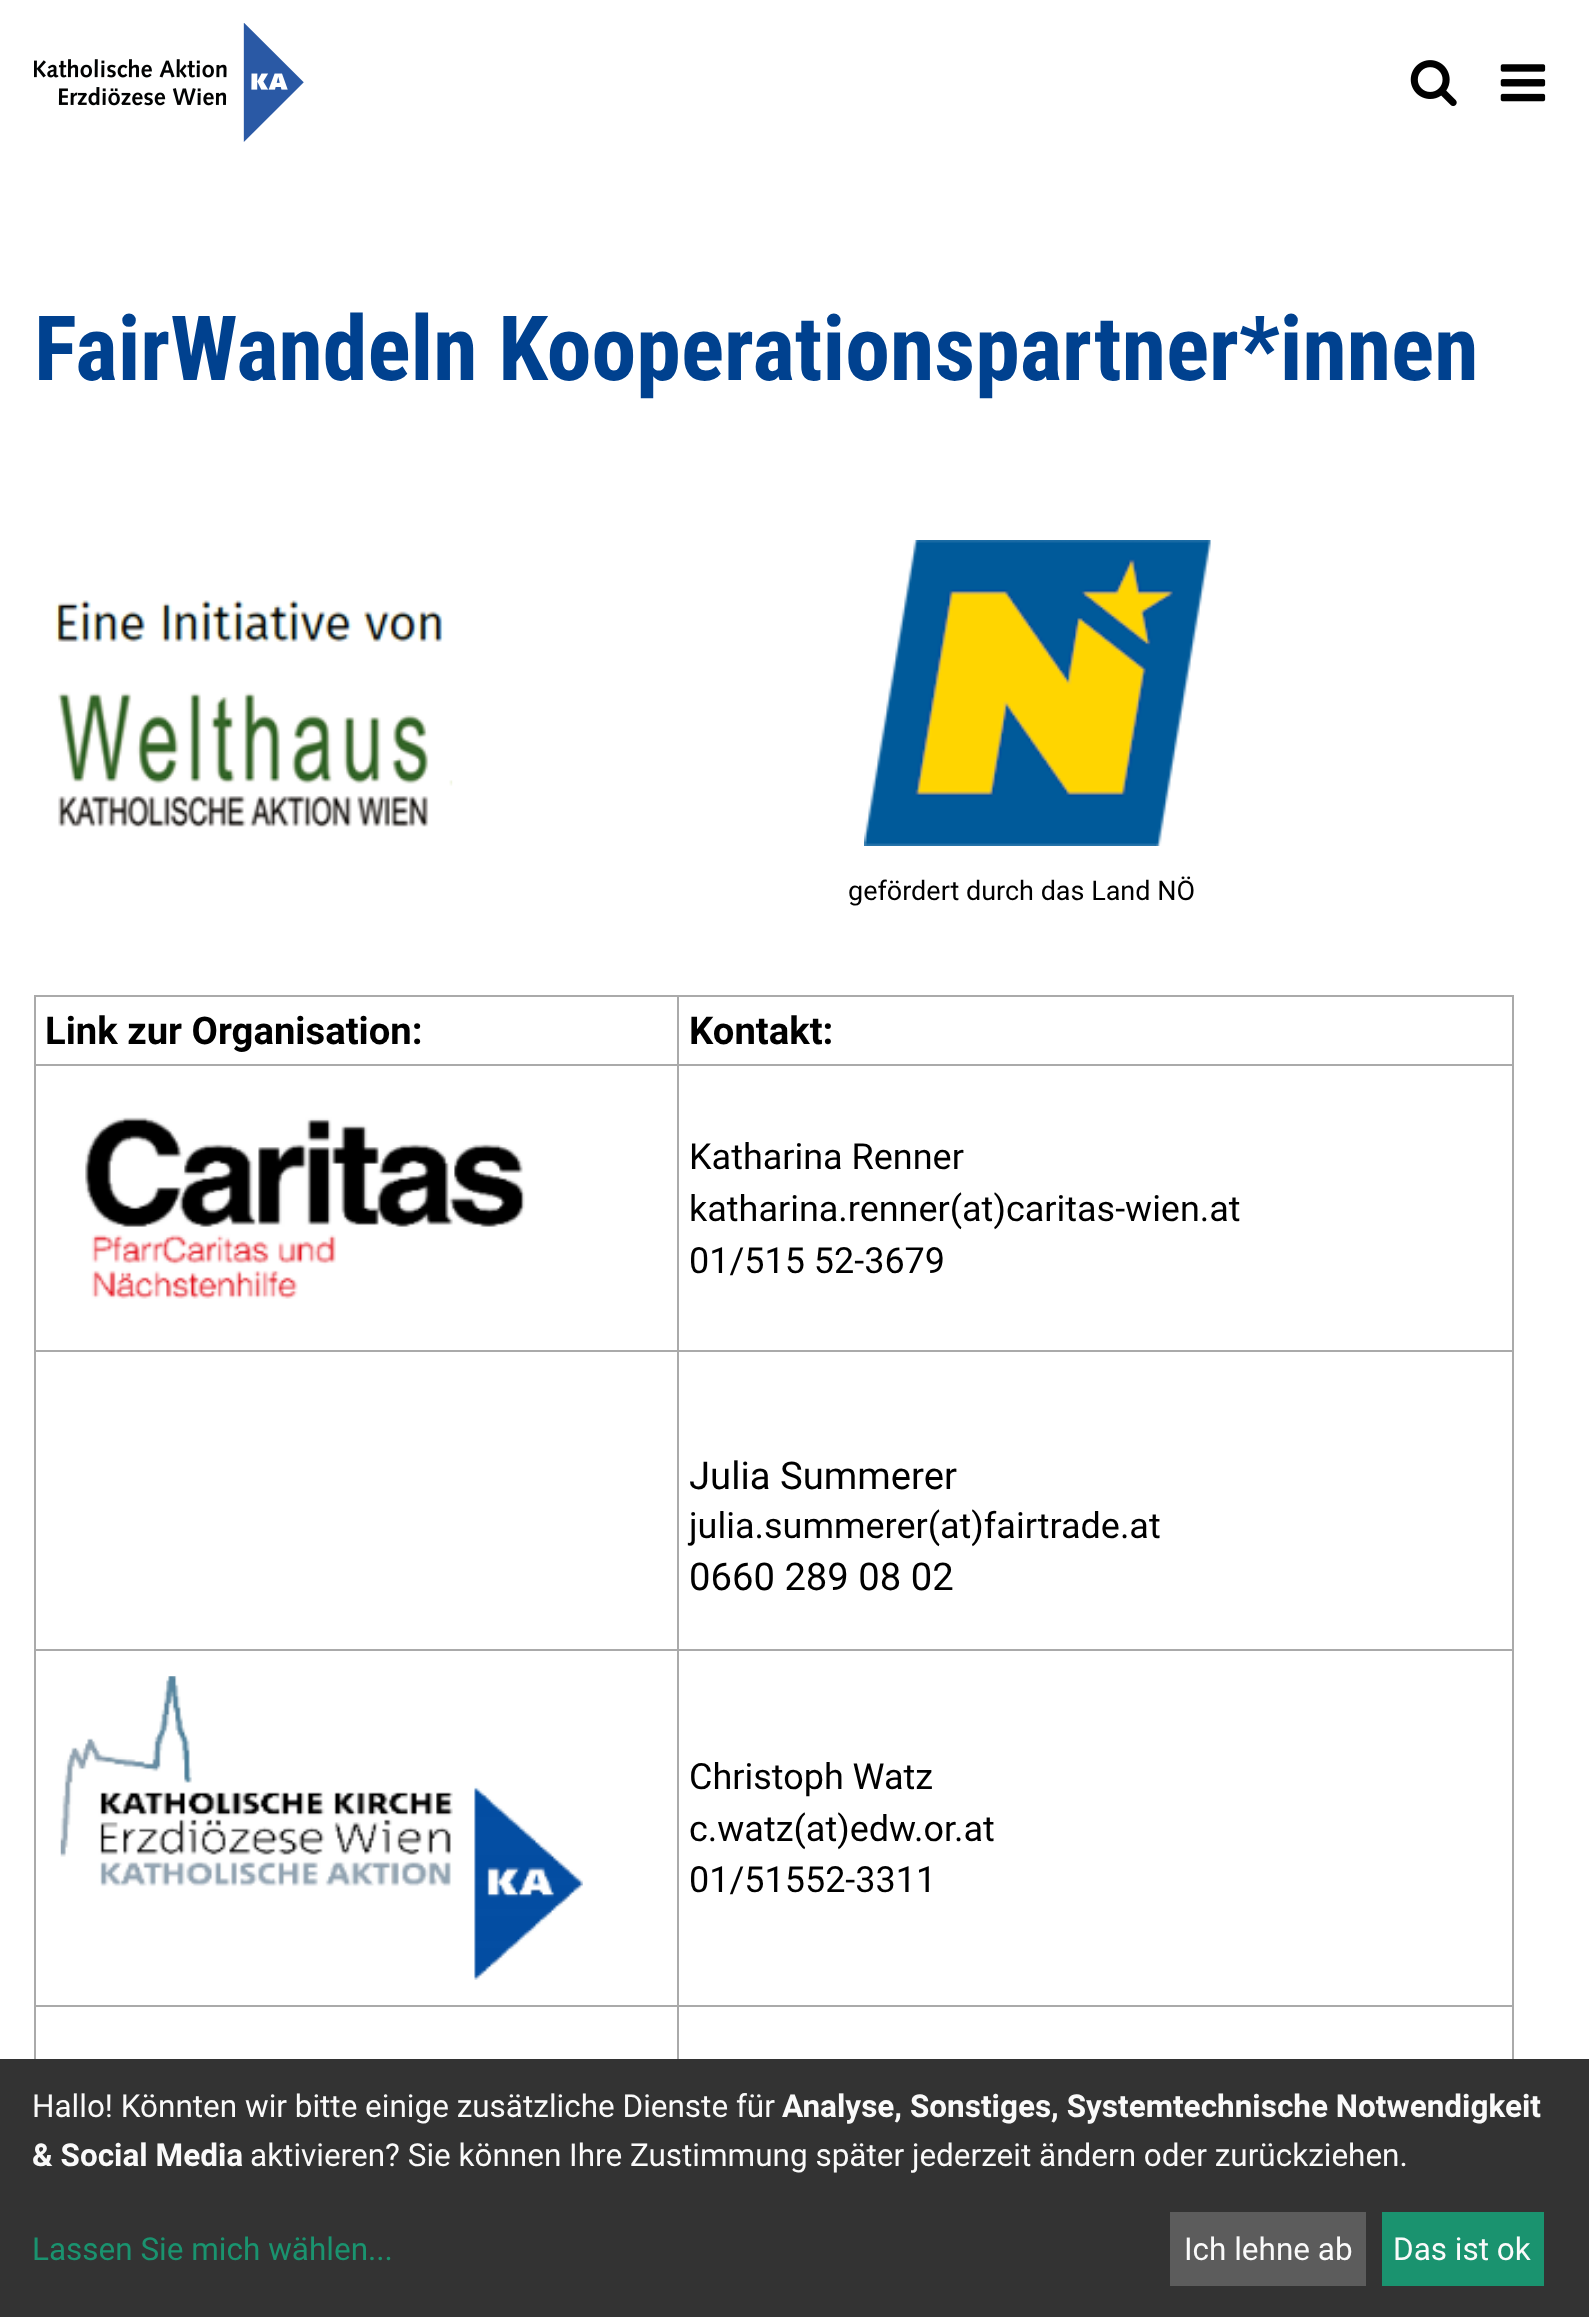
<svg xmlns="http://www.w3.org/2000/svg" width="1589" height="2317">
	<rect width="100%" height="100%" fill="#FFFFFF" />
	<image x="34" y="23" width="270" height="119" href="assets/img1.png" />
	<image x="1410" y="60" width="47" height="47" href="assets/img2.png" />
	<image x="1500" y="64" width="46" height="38" href="assets/img3.png" />
	<text x="34" y="380" font-family="Roboto Condensed" font-size="90" font-weight="700" fill="#00418F">FairWandeln Kooperationspartner*innen</text>
	<image x="55" y="600" width="398" height="229" href="assets/img4.png" />
	<image x="864" y="540" width="347" height="306" href="assets/img5.png" />
	<text x="848" y="900" font-family="Roboto" font-size="27" fill="#000000">gefördert durch das Land NÖ</text>
	<rect x="34" y="995" width="1480" height="2" fill="#AAAAAA" />
	<rect x="1512" y="995" width="2" height="1064" fill="#AAAAAA" />
	<rect x="34" y="995" width="2" height="1064" fill="#AAAAAA" />
	<text x="45" y="1044" font-family="Roboto" font-size="38.25" font-weight="700" fill="#000000">Link zur Organisation:</text>
	<rect x="677" y="1064" width="837" height="2" fill="#AAAAAA" />
	<rect x="677" y="1350" width="837" height="2" fill="#AAAAAA" />
	<rect x="677" y="1649" width="837" height="2" fill="#AAAAAA" />
	<rect x="677" y="2005" width="837" height="2" fill="#AAAAAA" />
	<rect x="677" y="2005" width="2" height="54" fill="#AAAAAA" />
	<rect x="34" y="2005" width="646" height="2" fill="#AAAAAA" />
	<rect x="677" y="1649" width="2" height="358" fill="#AAAAAA" />
	<rect x="34" y="1649" width="646" height="2" fill="#AAAAAA" />
	<rect x="677" y="1350" width="2" height="302" fill="#AAAAAA" />
	<rect x="34" y="1350" width="646" height="2" fill="#AAAAAA" />
	<rect x="677" y="1064" width="2" height="288" fill="#AAAAAA" />
	<rect x="34" y="1064" width="646" height="2" fill="#AAAAAA" />
	<rect x="677" y="995" width="2" height="72" fill="#AAAAAA" />
	<text x="689" y="1044" font-family="Roboto" font-size="38.25" font-weight="700" fill="#000000">Kontakt:</text>
	<image x="85" y="1117" width="440" height="182" href="assets/img6.png" />
	<g font-family="Roboto" font-size="36" fill="#000000">
		<text x="689" y="1169">Katharina Renner</text>
		<text x="689" y="1221">katharina.renner(at)caritas-wien.at</text>
		<text x="689" y="1273">01/515 52-3679</text>
	</g>
	<text x="689" y="1489" font-family="Roboto" font-size="38.25" fill="#000000">Julia Summerer</text>
	<text x="689" y="1538" font-family="Roboto" font-size="36" fill="#000000">julia.summerer(at)fairtrade.at</text>
	<text x="689" y="1590" font-family="Roboto" font-size="38.25" fill="#000000">0660 289 08 02</text>
	<image x="60" y="1676" width="523" height="304" href="assets/img7.png" />
	<g font-family="Roboto" font-size="36" fill="#000000">
		<text x="689" y="1789">Christoph Watz</text>
		<text x="689" y="1841">c.watz(at)edw.or.at</text>
		<text x="689" y="1892">01/51552-3311</text>
	</g>
	<rect x="0" y="2059" width="1589" height="258" fill="#333333" />
	<text x="32" y="2117" font-family="Roboto" font-size="31.5" fill="#FAFAFA">Hallo! Könnten wir bitte einige zusätzliche Dienste für</text>
	<g font-family="Roboto" font-size="31.5" font-weight="700" fill="#FAFAFA">
		<text x="782" y="2117">Analyse, Sonstiges, Systemtechnische Notwendigkeit</text>
		<text x="32" y="2166">&amp; Social Media</text>
	</g>
	<text x="250" y="2166" font-family="Roboto" font-size="31.5" fill="#FAFAFA">aktivieren? Sie können Ihre Zustimmung später jederzeit ändern oder zurückziehen.</text>
	<text x="32" y="2260" font-family="Roboto" font-size="31.5" fill="#1A936F">Lassen Sie mich wählen...</text>
	<rect x="1170" y="2212" width="196" height="74" fill="#5C5C5C" />
	<text x="1184" y="2260" font-family="Roboto" font-size="31.5" fill="#FAFAFA">Ich lehne ab</text>
	<rect x="1382" y="2212" width="162" height="74" fill="#1A936F" />
	<text x="1393" y="2260" font-family="Roboto" font-size="31.5" fill="#FAFAFA">Das ist ok</text>
</svg>
